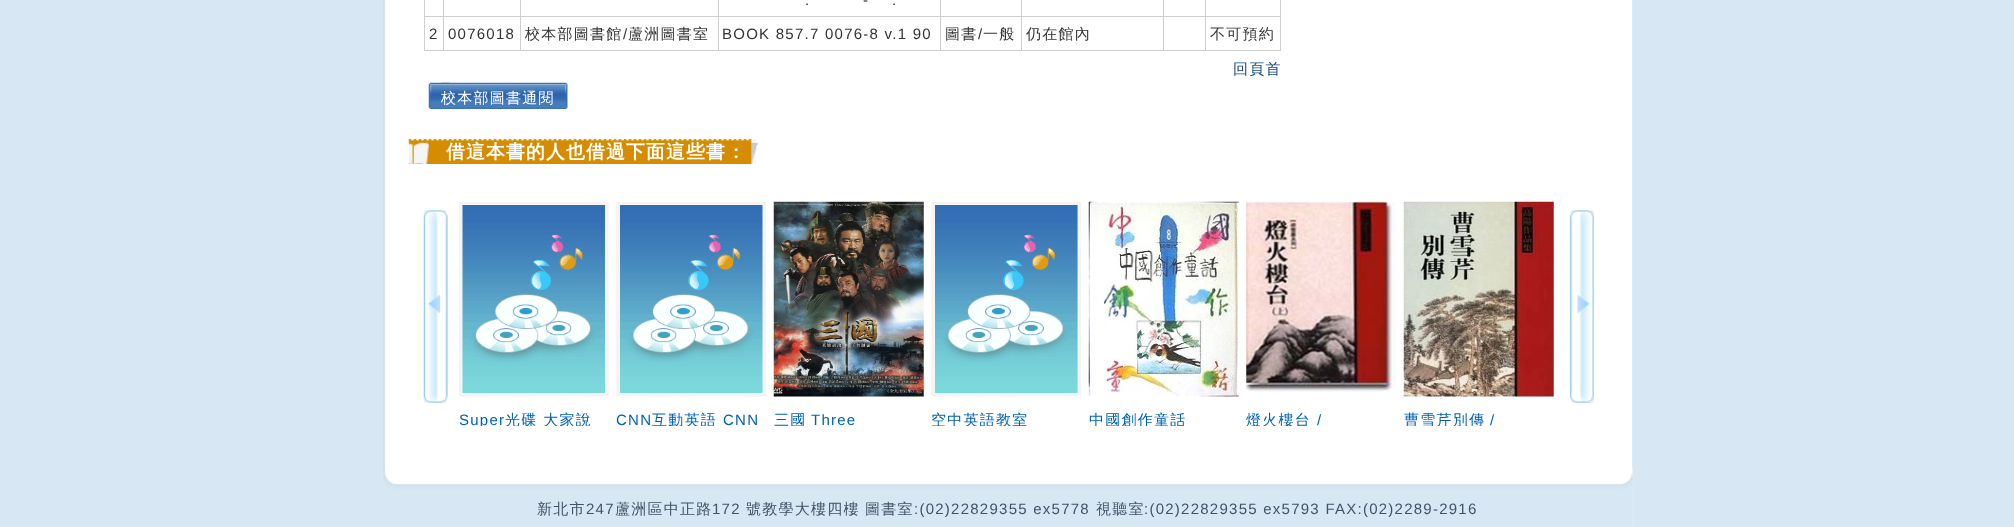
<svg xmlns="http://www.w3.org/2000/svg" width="2014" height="527">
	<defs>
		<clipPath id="clip1"><rect x="459" y="201" width="1100" height="225" /></clipPath>
	</defs>
	<rect width="100%" height="100%" fill="#D7E8F4" />
	<image x="383" y="0" width="1250" height="527" href="assets/img1.png" />
	<rect x="1280" y="0" width="1" height="51" fill="#CFCFCF" />
	<rect x="424" y="0" width="1" height="51" fill="#CFCFCF" />
	<rect x="1205" y="50" width="76" height="1" fill="#CFCFCF" />
	<rect x="1205" y="16" width="1" height="35" fill="#CFCFCF" />
	<rect x="1205" y="16" width="76" height="1" fill="#CFCFCF" />
	<rect x="1205" y="0" width="1" height="18" fill="#CFCFCF" />
	<rect x="1163" y="50" width="43" height="1" fill="#CFCFCF" />
	<rect x="1163" y="16" width="1" height="35" fill="#CFCFCF" />
	<rect x="1163" y="16" width="43" height="1" fill="#CFCFCF" />
	<rect x="1163" y="0" width="1" height="18" fill="#CFCFCF" />
	<rect x="1021" y="50" width="143" height="1" fill="#CFCFCF" />
	<rect x="1021" y="16" width="1" height="35" fill="#CFCFCF" />
	<rect x="1021" y="16" width="143" height="1" fill="#CFCFCF" />
	<rect x="1021" y="0" width="1" height="18" fill="#CFCFCF" />
	<rect x="940" y="50" width="83" height="1" fill="#CFCFCF" />
	<rect x="940" y="16" width="1" height="35" fill="#CFCFCF" />
	<rect x="940" y="16" width="83" height="1" fill="#CFCFCF" />
	<rect x="940" y="0" width="1" height="18" fill="#CFCFCF" />
	<rect x="718" y="50" width="223" height="1" fill="#CFCFCF" />
	<rect x="718" y="16" width="1" height="35" fill="#CFCFCF" />
	<rect x="718" y="16" width="223" height="1" fill="#CFCFCF" />
	<rect x="718" y="0" width="1" height="18" fill="#CFCFCF" />
	<rect x="520" y="50" width="199" height="1" fill="#CFCFCF" />
	<rect x="520" y="16" width="1" height="35" fill="#CFCFCF" />
	<rect x="520" y="16" width="199" height="1" fill="#CFCFCF" />
	<rect x="520" y="0" width="1" height="18" fill="#CFCFCF" />
	<rect x="443" y="50" width="78" height="1" fill="#CFCFCF" />
	<rect x="443" y="16" width="1" height="35" fill="#CFCFCF" />
	<rect x="443" y="16" width="78" height="1" fill="#CFCFCF" />
	<rect x="443" y="0" width="1" height="18" fill="#CFCFCF" />
	<rect x="424" y="16" width="20" height="1" fill="#CFCFCF" />
	<g font-family="Liberation Sans" font-size="15" letter-spacing="1.25" fill="#333333">
		<text x="863" y="5">-</text>
		<text x="805" y="5">.</text>
		<text x="892" y="5">.</text>
	</g>
	<rect x="424" y="50" width="20" height="1" fill="#CFCFCF" />
	<g font-family="Liberation Sans" font-size="15" letter-spacing="1.25" fill="#333333">
		<text x="429" y="39">2</text>
		<text x="448" y="39">0076018</text>
	</g>
	<text x="525" y="39" font-family="WenQuanYi Zen Hei" font-size="15" font-weight="500" letter-spacing="1.25" fill="#333333">校本部圖書館</text>
	<text x="623" y="39" font-family="Liberation Sans" font-size="15" letter-spacing="1.25" fill="#333333">/</text>
	<text x="628" y="39" font-family="WenQuanYi Zen Hei" font-size="15" font-weight="500" letter-spacing="1.25" fill="#333333">蘆洲圖書室</text>
	<text x="722" y="39" font-family="Liberation Sans" font-size="15" letter-spacing="1.25" fill="#333333">BOOK 857.7 0076-8 v.1 90</text>
	<text x="945" y="39" font-family="WenQuanYi Zen Hei" font-size="15" font-weight="500" letter-spacing="1.25" fill="#333333">圖書</text>
	<text x="978" y="39" font-family="Liberation Sans" font-size="15" letter-spacing="1.25" fill="#333333">/</text>
	<g font-family="WenQuanYi Zen Hei" font-size="15" font-weight="500" letter-spacing="1.25" fill="#333333">
		<text x="983" y="39">一般</text>
		<text x="1026" y="39">仍在館內</text>
		<text x="1210" y="39">不可預約</text>
	</g>
	<text x="1233" y="74" font-family="WenQuanYi Zen Hei" font-size="15" font-weight="500" letter-spacing="1.25" fill="#14497F">回頁首</text>
	<image x="428" y="82" width="22" height="27" href="assets/img2.png" />
	<image x="441" y="82" width="127" height="27" href="assets/img3.png" />
	<text x="441" y="103" font-family="WenQuanYi Zen Hei" font-size="15" font-weight="500" letter-spacing="1.25" fill="#FFFFFF">校本部圖書通閱</text>
	<image x="408" y="139" width="350" height="25" href="assets/img4.png" />
	<text x="446" y="158" font-family="WenQuanYi Zen Hei" font-size="18.75" font-weight="700" letter-spacing="1.25" fill="#FFFFFF">借這本書的人也借過下面這些書</text>
	<text x="733" y="158" font-family="Liberation Sans" font-size="18.75" font-weight="700" letter-spacing="1.25" fill="#FFFFFF">:</text>
	<image x="423" y="210" width="25" height="193" href="assets/img5.png" />
	<image x="1569" y="210" width="25" height="193" href="assets/img6.png" />
	<image x="459" y="202" width="150" height="195" href="assets/img7.png" />
	<g clip-path="url(#clip1)">
		<text x="459" y="425" font-family="Liberation Sans" font-size="15" letter-spacing="1.25" fill="#0061B4">Super</text>
		<text x="505" y="425" font-family="WenQuanYi Zen Hei" font-size="15" font-weight="500" letter-spacing="1.25" fill="#0061B4">光碟 大家說</text>
	</g>
	<image x="616" y="202" width="150" height="195" href="assets/img8.png" />
	<text x="616" y="425" font-family="Liberation Sans" font-size="15" letter-spacing="1.25" fill="#0061B4">CNN</text>
	<g clip-path="url(#clip1)">
		<text x="652" y="425" font-family="WenQuanYi Zen Hei" font-size="15" font-weight="500" letter-spacing="1.25" fill="#0061B4">互動英語</text>
	</g>
	<text x="723" y="425" font-family="Liberation Sans" font-size="15" letter-spacing="1.25" fill="#0061B4">CNN</text>
	<image x="773" y="201" width="151" height="196" href="assets/img9.png" />
	<g clip-path="url(#clip1)">
		<text x="774" y="425" font-family="WenQuanYi Zen Hei" font-size="15" font-weight="500" letter-spacing="1.25" fill="#0061B4">三國</text>
	</g>
	<text x="811" y="425" font-family="Liberation Sans" font-size="15" letter-spacing="1.25" fill="#0061B4">Three</text>
	<image x="931" y="202" width="150" height="195" href="assets/img10.png" />
	<g clip-path="url(#clip1)">
		<text x="931" y="425" font-family="WenQuanYi Zen Hei" font-size="15" font-weight="500" letter-spacing="1.25" fill="#0061B4">空中英語教室</text>
	</g>
	<image x="1088" y="201" width="151" height="196" href="assets/img11.png" />
	<g clip-path="url(#clip1)">
		<text x="1089" y="425" font-family="WenQuanYi Zen Hei" font-size="15" font-weight="500" letter-spacing="1.25" fill="#0061B4">中國創作童話</text>
	</g>
	<image x="1246" y="201" width="150" height="191" href="assets/img12.png" />
	<g clip-path="url(#clip1)">
		<text x="1246" y="425" font-family="WenQuanYi Zen Hei" font-size="15" font-weight="500" letter-spacing="1.25" fill="#0061B4">燈火樓台</text>
	</g>
	<text x="1317" y="425" font-family="Liberation Sans" font-size="15" letter-spacing="1.25" fill="#0061B4">/</text>
	<image x="1403" y="201" width="151" height="196" href="assets/img13.png" />
	<g clip-path="url(#clip1)">
		<text x="1404" y="425" font-family="WenQuanYi Zen Hei" font-size="15" font-weight="500" letter-spacing="1.25" fill="#0061B4">曹雪芹別傳</text>
	</g>
	<text x="1490" y="425" font-family="Liberation Sans" font-size="15" letter-spacing="1.25" fill="#0061B4">/</text>
	<image x="383" y="467" width="1250" height="60" href="assets/img14.png" />
	<text x="537" y="514" font-family="WenQuanYi Zen Hei" font-size="15" font-weight="500" letter-spacing="1.25" fill="#425267">新北市</text>
	<text x="586" y="514" font-family="Liberation Sans" font-size="15" letter-spacing="1.25" fill="#425267">247</text>
	<text x="615" y="514" font-family="WenQuanYi Zen Hei" font-size="15" font-weight="500" letter-spacing="1.25" fill="#425267">蘆洲區中正路</text>
	<text x="712" y="514" font-family="Liberation Sans" font-size="15" letter-spacing="1.25" fill="#425267">172</text>
	<g font-family="WenQuanYi Zen Hei" font-size="15" font-weight="500" letter-spacing="1.25" fill="#425267">
		<text x="746" y="514">號教學大樓四樓</text>
		<text x="865" y="514">圖書室</text>
	</g>
	<text x="914" y="514" font-family="Liberation Sans" font-size="15" letter-spacing="1.25" fill="#425267">:(02)22829355 ex5778</text>
	<text x="1096" y="514" font-family="WenQuanYi Zen Hei" font-size="15" font-weight="500" letter-spacing="1.25" fill="#425267">視聽室</text>
	<text x="1144" y="514" font-family="Liberation Sans" font-size="15" letter-spacing="1.25" fill="#425267">:(02)22829355 ex5793 FAX:(02)2289-2916</text>
</svg>
